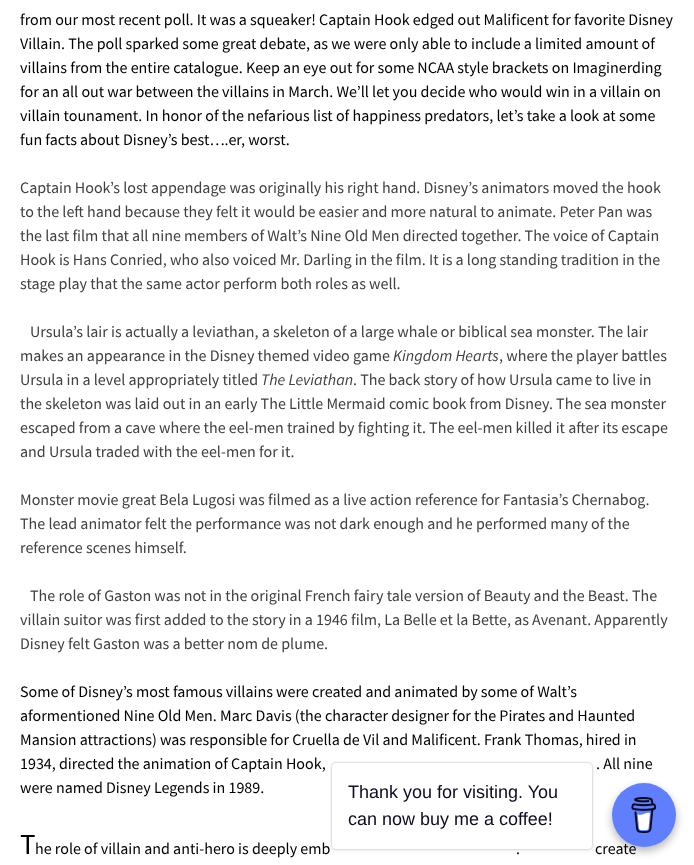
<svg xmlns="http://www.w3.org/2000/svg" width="694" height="865">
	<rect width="100%" height="100%" fill="#FFFFFF" />
	<g font-family="Source Sans Pro" font-size="16" fill="#000000">
		<text x="20" y="25">from our most recent poll. It was a squeaker! Captain Hook edged out Malificent for favorite Disney</text>
		<text x="20" y="49">Villain. The poll sparked some great debate, as we were only able to include a limited amount of</text>
		<text x="20" y="73">villains from the entire catalogue. Keep an eye out for some NCAA style brackets on Imaginerding</text>
		<text x="20" y="97">for an all out war between the villains in March. We’ll let you decide who would win in a villain on</text>
		<text x="20" y="121">villain tounament. In honor of the nefarious list of happiness predators, let’s take a look at some</text>
		<text x="20" y="145">fun facts about Disney’s best….er, worst.</text>
	</g>
	<g font-family="Source Sans Pro" font-size="16" fill="#404040">
		<text x="20" y="193">Captain Hook’s lost appendage was originally his right hand. Disney’s animators moved the hook</text>
		<text x="20" y="217">to the left hand because they felt it would be easier and more natural to animate. Peter Pan was</text>
		<text x="20" y="241">the last film that all nine members of Walt’s Nine Old Men directed together. The voice of Captain</text>
		<text x="20" y="265">Hook is Hans Conried, who also voiced Mr. Darling in the film. It is a long standing tradition in the</text>
		<text x="20" y="289">stage play that the same actor perform both roles as well.</text>
		<text x="30" y="337">Ursula’s lair is actually a leviathan, a skeleton of a large whale or biblical sea monster. The lair</text>
		<text x="20" y="361">makes an appearance in the Disney themed video game</text>
	</g>
	<text x="393" y="361" font-family="Source Sans Pro" font-size="16" font-style="italic" fill="#404040">Kingdom Hearts</text>
	<g font-family="Source Sans Pro" font-size="16" fill="#404040">
		<text x="499" y="361">, where the player battles</text>
		<text x="20" y="385">Ursula in a level appropriately titled</text>
	</g>
	<text x="261" y="385" font-family="Source Sans Pro" font-size="16" font-style="italic" fill="#404040">The Leviathan</text>
	<g font-family="Source Sans Pro" font-size="16" fill="#404040">
		<text x="353" y="385">. The back story of how Ursula came to live in</text>
		<text x="20" y="409">the skeleton was laid out in an early The Little Mermaid comic book from Disney. The sea monster</text>
		<text x="20" y="433">escaped from a cave where the eel-men trained by fighting it. The eel-men killed it after its escape</text>
		<text x="20" y="457">and Ursula traded with the eel-men for it.</text>
		<text x="20" y="505">Monster movie great Bela Lugosi was filmed as a live action reference for Fantasia’s Chernabog.</text>
		<text x="20" y="529">The lead animator felt the performance was not dark enough and he performed many of the</text>
		<text x="20" y="553">reference scenes himself.</text>
		<text x="30" y="601">The role of Gaston was not in the original French fairy tale version of Beauty and the Beast. The</text>
		<text x="20" y="625">villain suitor was first added to the story in a 1946 film, La Belle et la Bette, as Avenant. Apparently</text>
		<text x="20" y="649">Disney felt Gaston was a better nom de plume.</text>
	</g>
	<g font-family="Source Sans Pro" font-size="16" fill="#000000">
		<text x="20" y="697">Some of Disney’s most famous villains were created and animated by some of Walt’s</text>
		<text x="20" y="721">aformentioned Nine Old Men. Marc Davis (the character designer for the Pirates and Haunted</text>
		<text x="20" y="745">Mansion attractions) was responsible for Cruella de Vil and Malificent. Frank Thomas, hired in</text>
		<text x="20" y="769">1934, directed the animation of Captain Hook,</text>
		<text x="596" y="769">. All nine</text>
		<text x="20" y="793">were named Disney Legends in 1989.</text>
	</g>
	<text x="20" y="854" font-family="Source Sans Pro" font-size="29" fill="#000000">T</text>
	<g font-family="Source Sans Pro" font-size="16" fill="#000000">
		<text x="35" y="854">he role of villain and anti-hero is deeply emb</text>
		<text x="516" y="854">.</text>
		<text x="595" y="854">create</text>
	</g>
	<rect x="332" y="763" width="260" height="86" rx="4" fill="#000000" fill-opacity="0.15" filter="blur(1px)" />
	<rect x="332" y="765" width="260" height="86" rx="4" fill="#000000" fill-opacity="0.05" filter="blur(2.5px)" />
	<rect x="612" y="787" width="64" height="64" rx="32" fill="#000000" fill-opacity="0.15" filter="blur(4px)" />
	<rect x="332" y="763" width="260" height="86" rx="4" fill="#000000" fill-opacity="0.15" filter="blur(1px)" />
	<rect x="332" y="763" width="260" height="86" rx="4" fill="#FFFFFF" />
	<g font-family="Liberation Sans" font-size="18" fill="#0D0C22">
		<text x="348" y="798">Thank you for visiting. You</text>
		<text x="348" y="825">can now buy me a coffee!</text>
	</g>
	<rect x="612" y="787" width="64" height="64" rx="32" fill="#000000" fill-opacity="0.15" filter="blur(4px)" />
	<circle cx="644" cy="815" r="32" fill="#5F7FFF" />
	<image x="631" y="797" width="26" height="36" href="assets/img1.png" />
</svg>
